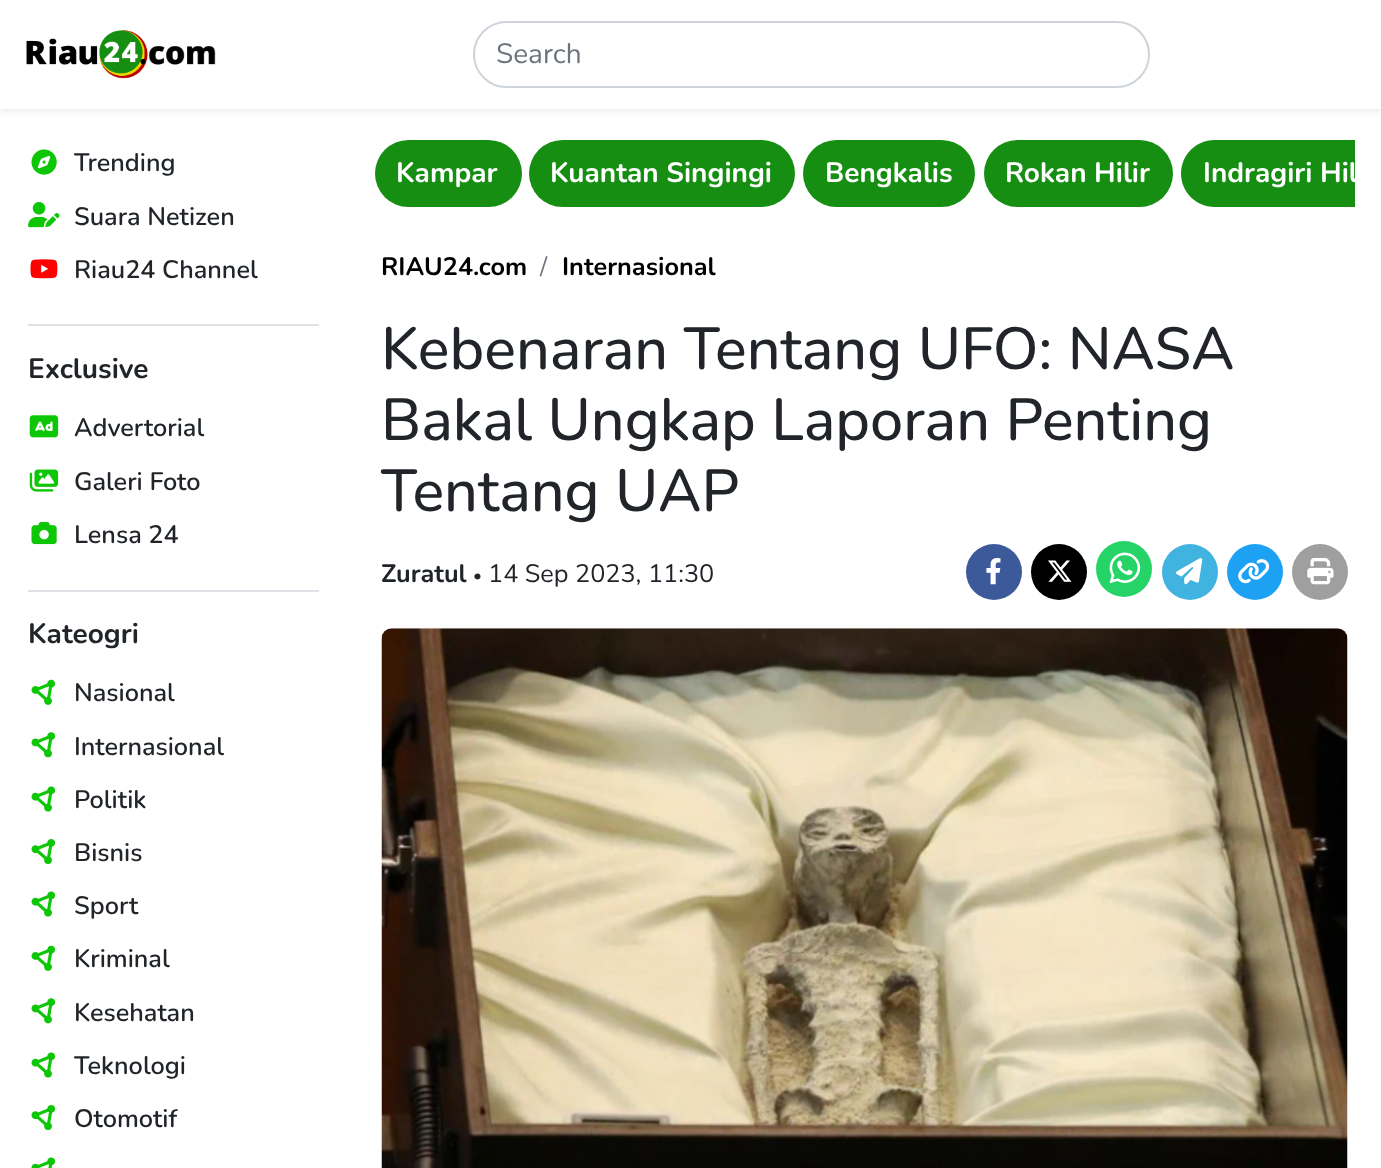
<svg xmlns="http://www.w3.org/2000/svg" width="1381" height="1168">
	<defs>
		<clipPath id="clip1"><rect x="375" y="140" width="980" height="67" /></clipPath>
	</defs>
	<rect width="100%" height="100%" fill="#FFFFFF" />
	<rect x="0" y="4" width="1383" height="108" fill="#000000" fill-opacity="0.07" filter="blur(3.5px)" />
	<rect x="0" y="0" width="1381" height="109" fill="#FFFFFF" />
	<image x="26" y="30" width="190" height="49" href="assets/img1.png" />
	<rect x="474" y="22" width="675" height="65" rx="32.5" fill="none" stroke="#CED4DA" stroke-width="2" />
	<text x="496" y="63" font-family="Nunito" font-size="28" fill="#6C757D">Search</text>
	<image x="31" y="149" width="26" height="26" href="assets/img2.png" />
	<text x="74" y="171" font-family="Nunito" font-size="25.25" font-weight="600" fill="#212529">Trending</text>
	<image x="28" y="202" width="32" height="26" href="assets/img3.png" />
	<text x="74" y="225" font-family="Nunito" font-size="25.25" font-weight="600" fill="#212529">Suara Netizen</text>
	<image x="30" y="259" width="28" height="20" href="assets/img4.png" />
	<text x="74" y="278" font-family="Nunito" font-size="25.25" font-weight="600" fill="#212529">Riau24 Channel</text>
	<rect x="28" y="324" width="291" height="2" fill="#DEE2E6" />
	<text x="28" y="378" font-family="Nunito" font-size="28" font-weight="700" fill="#212529">Exclusive</text>
	<image x="29" y="415" width="30" height="23" href="assets/img5.png" />
	<text x="74" y="436" font-family="Nunito" font-size="25.25" font-weight="600" fill="#212529">Advertorial</text>
	<image x="29" y="469" width="30" height="23" href="assets/img6.png" />
	<text x="74" y="490" font-family="Nunito" font-size="25.25" font-weight="600" fill="#212529">Galeri Foto</text>
	<image x="31" y="522" width="26" height="23" href="assets/img7.png" />
	<text x="74" y="543" font-family="Nunito" font-size="25.25" font-weight="600" fill="#212529">Lensa 24</text>
	<rect x="28" y="590" width="291" height="2" fill="#DEE2E6" />
	<text x="28" y="643" font-family="Nunito" font-size="28" font-weight="700" fill="#212529">Kateogri</text>
	<image x="31" y="679" width="25" height="26" href="assets/img8.png" />
	<text x="74" y="701" font-family="Nunito" font-size="25.25" font-weight="600" fill="#212529">Nasional</text>
	<image x="31" y="732" width="25" height="26" href="assets/img9.png" />
	<text x="74" y="755" font-family="Nunito" font-size="25.25" font-weight="600" fill="#212529">Internasional</text>
	<image x="31" y="786" width="25" height="26" href="assets/img10.png" />
	<text x="74" y="808" font-family="Nunito" font-size="25.25" font-weight="600" fill="#212529">Politik</text>
	<image x="31" y="839" width="25" height="26" href="assets/img11.png" />
	<text x="74" y="861" font-family="Nunito" font-size="25.25" font-weight="600" fill="#212529">Bisnis</text>
	<image x="31" y="891" width="25" height="26" href="assets/img10.png" />
	<text x="74" y="914" font-family="Nunito" font-size="25.25" font-weight="600" fill="#212529">Sport</text>
	<image x="31" y="945" width="25" height="26" href="assets/img8.png" />
	<text x="74" y="967" font-family="Nunito" font-size="25.25" font-weight="600" fill="#212529">Kriminal</text>
	<image x="31" y="998" width="25" height="26" href="assets/img9.png" />
	<text x="74" y="1021" font-family="Nunito" font-size="25.25" font-weight="600" fill="#212529">Kesehatan</text>
	<image x="31" y="1052" width="25" height="26" href="assets/img10.png" />
	<text x="74" y="1074" font-family="Nunito" font-size="25.25" font-weight="600" fill="#212529">Teknologi</text>
	<image x="31" y="1105" width="25" height="26" href="assets/img11.png" />
	<text x="74" y="1127" font-family="Nunito" font-size="25.25" font-weight="600" fill="#212529">Otomotif</text>
	<image x="31" y="1157" width="25" height="11" href="assets/img12.png" />
	<rect x="375" y="140" width="147" height="67" rx="33.5" fill="#158E11" />
	<text x="396" y="182" font-family="Nunito" font-size="28" font-weight="700" fill="#FFFFFF">Kampar</text>
	<rect x="529" y="140" width="266" height="67" rx="33.5" fill="#158E11" />
	<text x="550" y="182" font-family="Nunito" font-size="28" font-weight="700" fill="#FFFFFF">Kuantan Singingi</text>
	<rect x="803" y="140" width="172" height="67" rx="33.5" fill="#158E11" />
	<text x="825" y="182" font-family="Nunito" font-size="28" font-weight="700" fill="#FFFFFF">Bengkalis</text>
	<rect x="984" y="140" width="189" height="67" rx="33.5" fill="#158E11" />
	<text x="1005" y="182" font-family="Nunito" font-size="28" font-weight="700" fill="#FFFFFF">Rokan Hilir</text>
	<path d="M1214.5 140H1355V207H1214.5C1196 207 1181 192 1181 173.5C1181 155 1196 140 1214.5 140Z" fill="#158E11" />
	<g clip-path="url(#clip1)">
		<text x="1203" y="182" font-family="Nunito" font-size="28" font-weight="700" fill="#FFFFFF">Indragiri Hil</text>
	</g>
	<text x="381" y="275" font-family="Nunito" font-size="25.25" font-weight="700" fill="#000000">RIAU24.com</text>
	<text x="540" y="275" font-family="Nunito" font-size="25.25" fill="#6C757D">/</text>
	<text x="562" y="275" font-family="Nunito" font-size="25.25" font-weight="700" fill="#000000">Internasional</text>
	<g font-family="Nunito" font-size="59.25" font-weight="500" fill="#212529">
		<text x="381" y="369">Kebenaran Tentang UFO: NASA</text>
		<text x="381" y="440">Bakal Ungkap Laporan Penting</text>
		<text x="381" y="511">Tentang UAP</text>
	</g>
	<text x="381" y="582" font-family="Nunito" font-size="25.25" font-weight="700" fill="#212529">Zuratul</text>
	<text x="473" y="581" font-family="Nunito" font-size="17" fill="#212529">•</text>
	<text x="488" y="582" font-family="Nunito" font-size="25.25" fill="#212529">14 Sep 2023, 11:30</text>
	<circle cx="994" cy="572" r="28" fill="#3C5A99" />
	<image x="986" y="558" width="15" height="27" href="assets/img13.png" />
	<circle cx="1059" cy="572" r="28" fill="#000000" />
	<image x="1048" y="560" width="24" height="22" href="assets/img14.png" />
	<circle cx="1124" cy="569" r="28" fill="#25D366" />
	<image x="1109" y="552" width="32" height="32" href="assets/img15.png" />
	<circle cx="1190" cy="572" r="28" fill="#40B3E0" />
	<image x="1176" y="558" width="27" height="27" href="assets/img16.png" />
	<circle cx="1255" cy="572" r="28" fill="#1DA1F2" />
	<image x="1238" y="559" width="32" height="25" href="assets/img17.png" />
	<circle cx="1320" cy="572" r="28" fill="#9F9F9F" />
	<image x="1307" y="558" width="27" height="27" href="assets/img18.png" />
	<image x="381" y="628" width="967" height="540" href="assets/img19.png" />
</svg>
